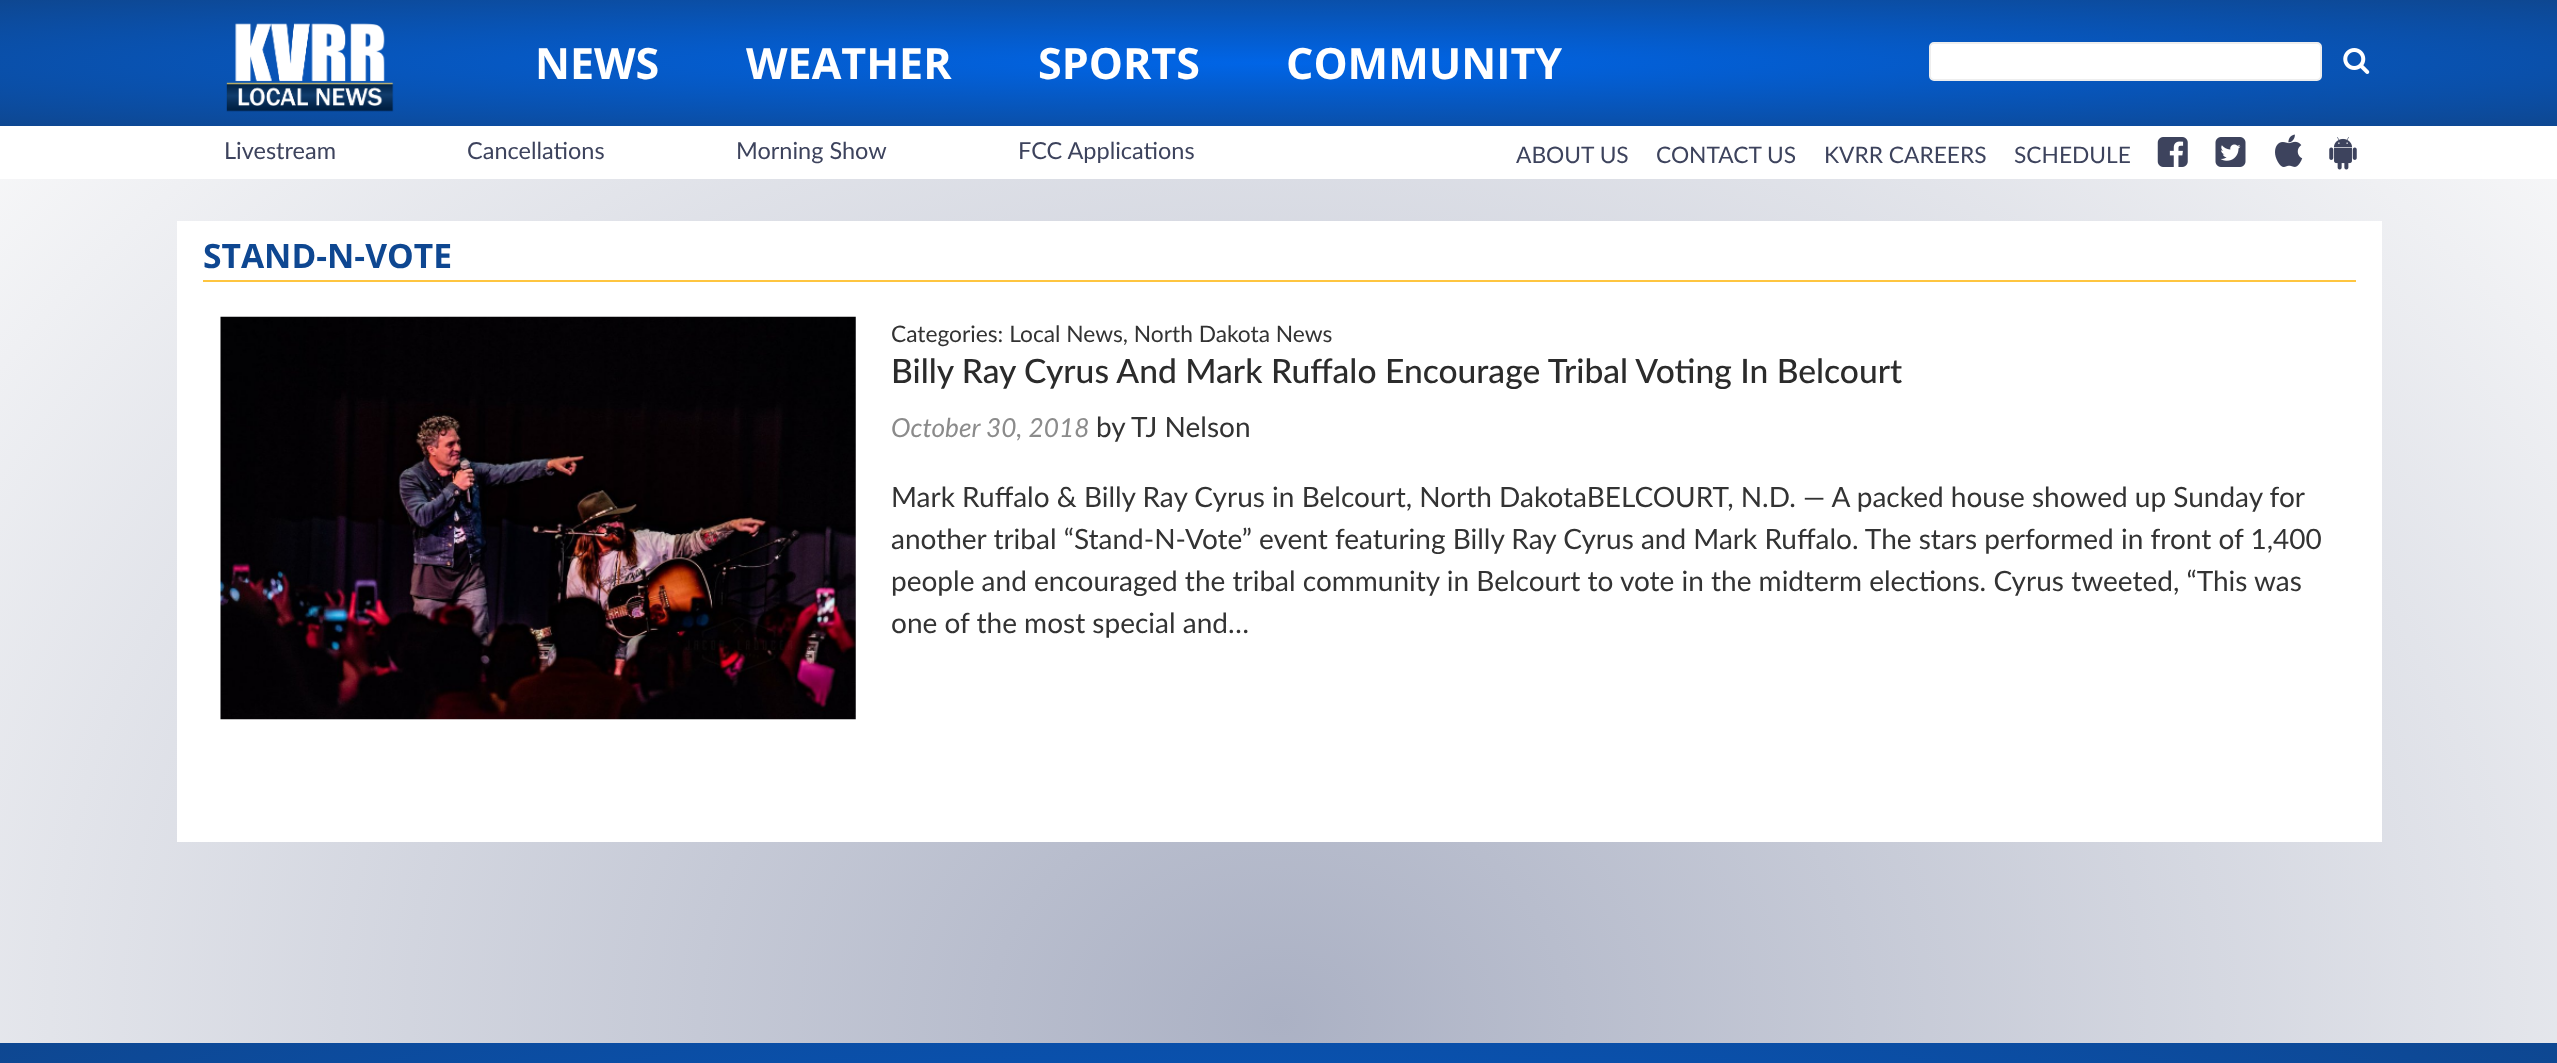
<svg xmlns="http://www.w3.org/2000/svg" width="2557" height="1063">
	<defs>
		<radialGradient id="g1" gradientUnits="userSpaceOnUse" cx="0" cy="0" r="1" gradientTransform="matrix(1809 0 0 1443 1279 1020)"><stop offset="0" stop-color="#ABB1C4" /><stop offset="1" stop-color="#FCFCFC" /></radialGradient>
		<radialGradient id="g2" gradientUnits="userSpaceOnUse" cx="0" cy="0" r="1" gradientTransform="matrix(1809 0 0 89 1279 63)"><stop offset="0" stop-color="#0065E7" /><stop offset="1" stop-color="#0E4791" /></radialGradient>
		<radialGradient id="g3" gradientUnits="userSpaceOnUse" cx="0" cy="0" r="1" gradientTransform="matrix(1809 0 0 705 1279 1542)"><stop offset="0" stop-color="#0065E7" /><stop offset="1" stop-color="#0E4791" /></radialGradient>
	</defs>
	<rect width="100%" height="100%" fill="#FFFFFF" />
	<rect x="0" y="179" width="2557" height="864" fill="url(#g1)" />
	<rect x="0" y="0" width="2557" height="126" fill="url(#g2)" />
	<image x="226" y="23" width="168" height="89" href="assets/img1.png" />
	<g font-family="Open Sans" font-size="43" font-weight="700" fill="#FFFFFF">
		<text x="535" y="79">NEWS</text>
		<text x="746" y="79">WEATHER</text>
		<text x="1038" y="79">SPORTS</text>
		<text x="1286" y="79">COMMUNITY</text>
	</g>
	<rect x="1930" y="43" width="391" height="37" rx="4" fill="#FFFFFF" stroke="#EEEEEE" stroke-width="2" />
	<image x="2343" y="48" width="27" height="26" href="assets/img2.png" />
	<g font-family="Lato" font-size="23.5" fill="#3D435D">
		<text x="224" y="159">Livestream</text>
		<text x="467" y="159">Cancellations</text>
		<text x="736" y="159">Morning Show</text>
		<text x="1018" y="159">FCC Applications</text>
	</g>
	<g font-family="Lato" font-size="22.75" fill="#3D435D">
		<text x="1516" y="163">ABOUT US</text>
		<text x="1656" y="163">CONTACT US</text>
		<text x="1824" y="163">KVRR CAREERS</text>
		<text x="2014" y="163">SCHEDULE</text>
	</g>
	<image x="2157" y="137" width="31" height="30" href="assets/img3.png" />
	<image x="2215" y="137" width="31" height="30" href="assets/img4.png" />
	<image x="2275" y="134" width="28" height="33" href="assets/img5.png" />
	<image x="2329" y="137" width="28" height="33" href="assets/img6.png" />
	<rect x="177" y="221" width="2205" height="621" fill="#FFFFFF" />
	<rect x="203" y="280" width="2153" height="2" fill="#FEC540" />
	<text x="203" y="268" font-family="Open Sans" font-size="33.6" font-weight="700" fill="#0E4791">STAND-N-VOTE</text>
	<image x="220" y="316" width="636" height="404" href="assets/img7.png" />
	<text x="891" y="342" font-family="Lato" font-size="22.75" fill="#333333">Categories: Local News, North Dakota News</text>
	<text x="891" y="383" font-family="Lato" font-size="33.6" font-weight="500" fill="#2B2B2B">Billy Ray Cyrus And Mark Ruffalo Encourage Tribal Voting In Belcourt</text>
	<text x="891" y="437" font-family="Lato" font-size="26.25" font-style="italic" fill="#8B8B8B">October 30, 2018</text>
	<g font-family="Lato" font-size="28" fill="#333333">
		<text x="1096" y="437">by</text>
		<text x="1131" y="437">TJ Nelson</text>
		<text x="891" y="507">Mark Ruffalo &amp; Billy Ray Cyrus in Belcourt, North DakotaBELCOURT, N.D. — A packed house showed up Sunday for</text>
		<text x="891" y="549">another tribal “Stand-N-Vote” event featuring Billy Ray Cyrus and Mark Ruffalo. The stars performed in front of 1,400</text>
		<text x="891" y="591">people and encouraged the tribal community in Belcourt to vote in the midterm elections. Cyrus tweeted, “This was</text>
		<text x="891" y="633">one of the most special and…</text>
	</g>
	<rect x="0" y="1043" width="2557" height="20" fill="url(#g3)" />
</svg>
